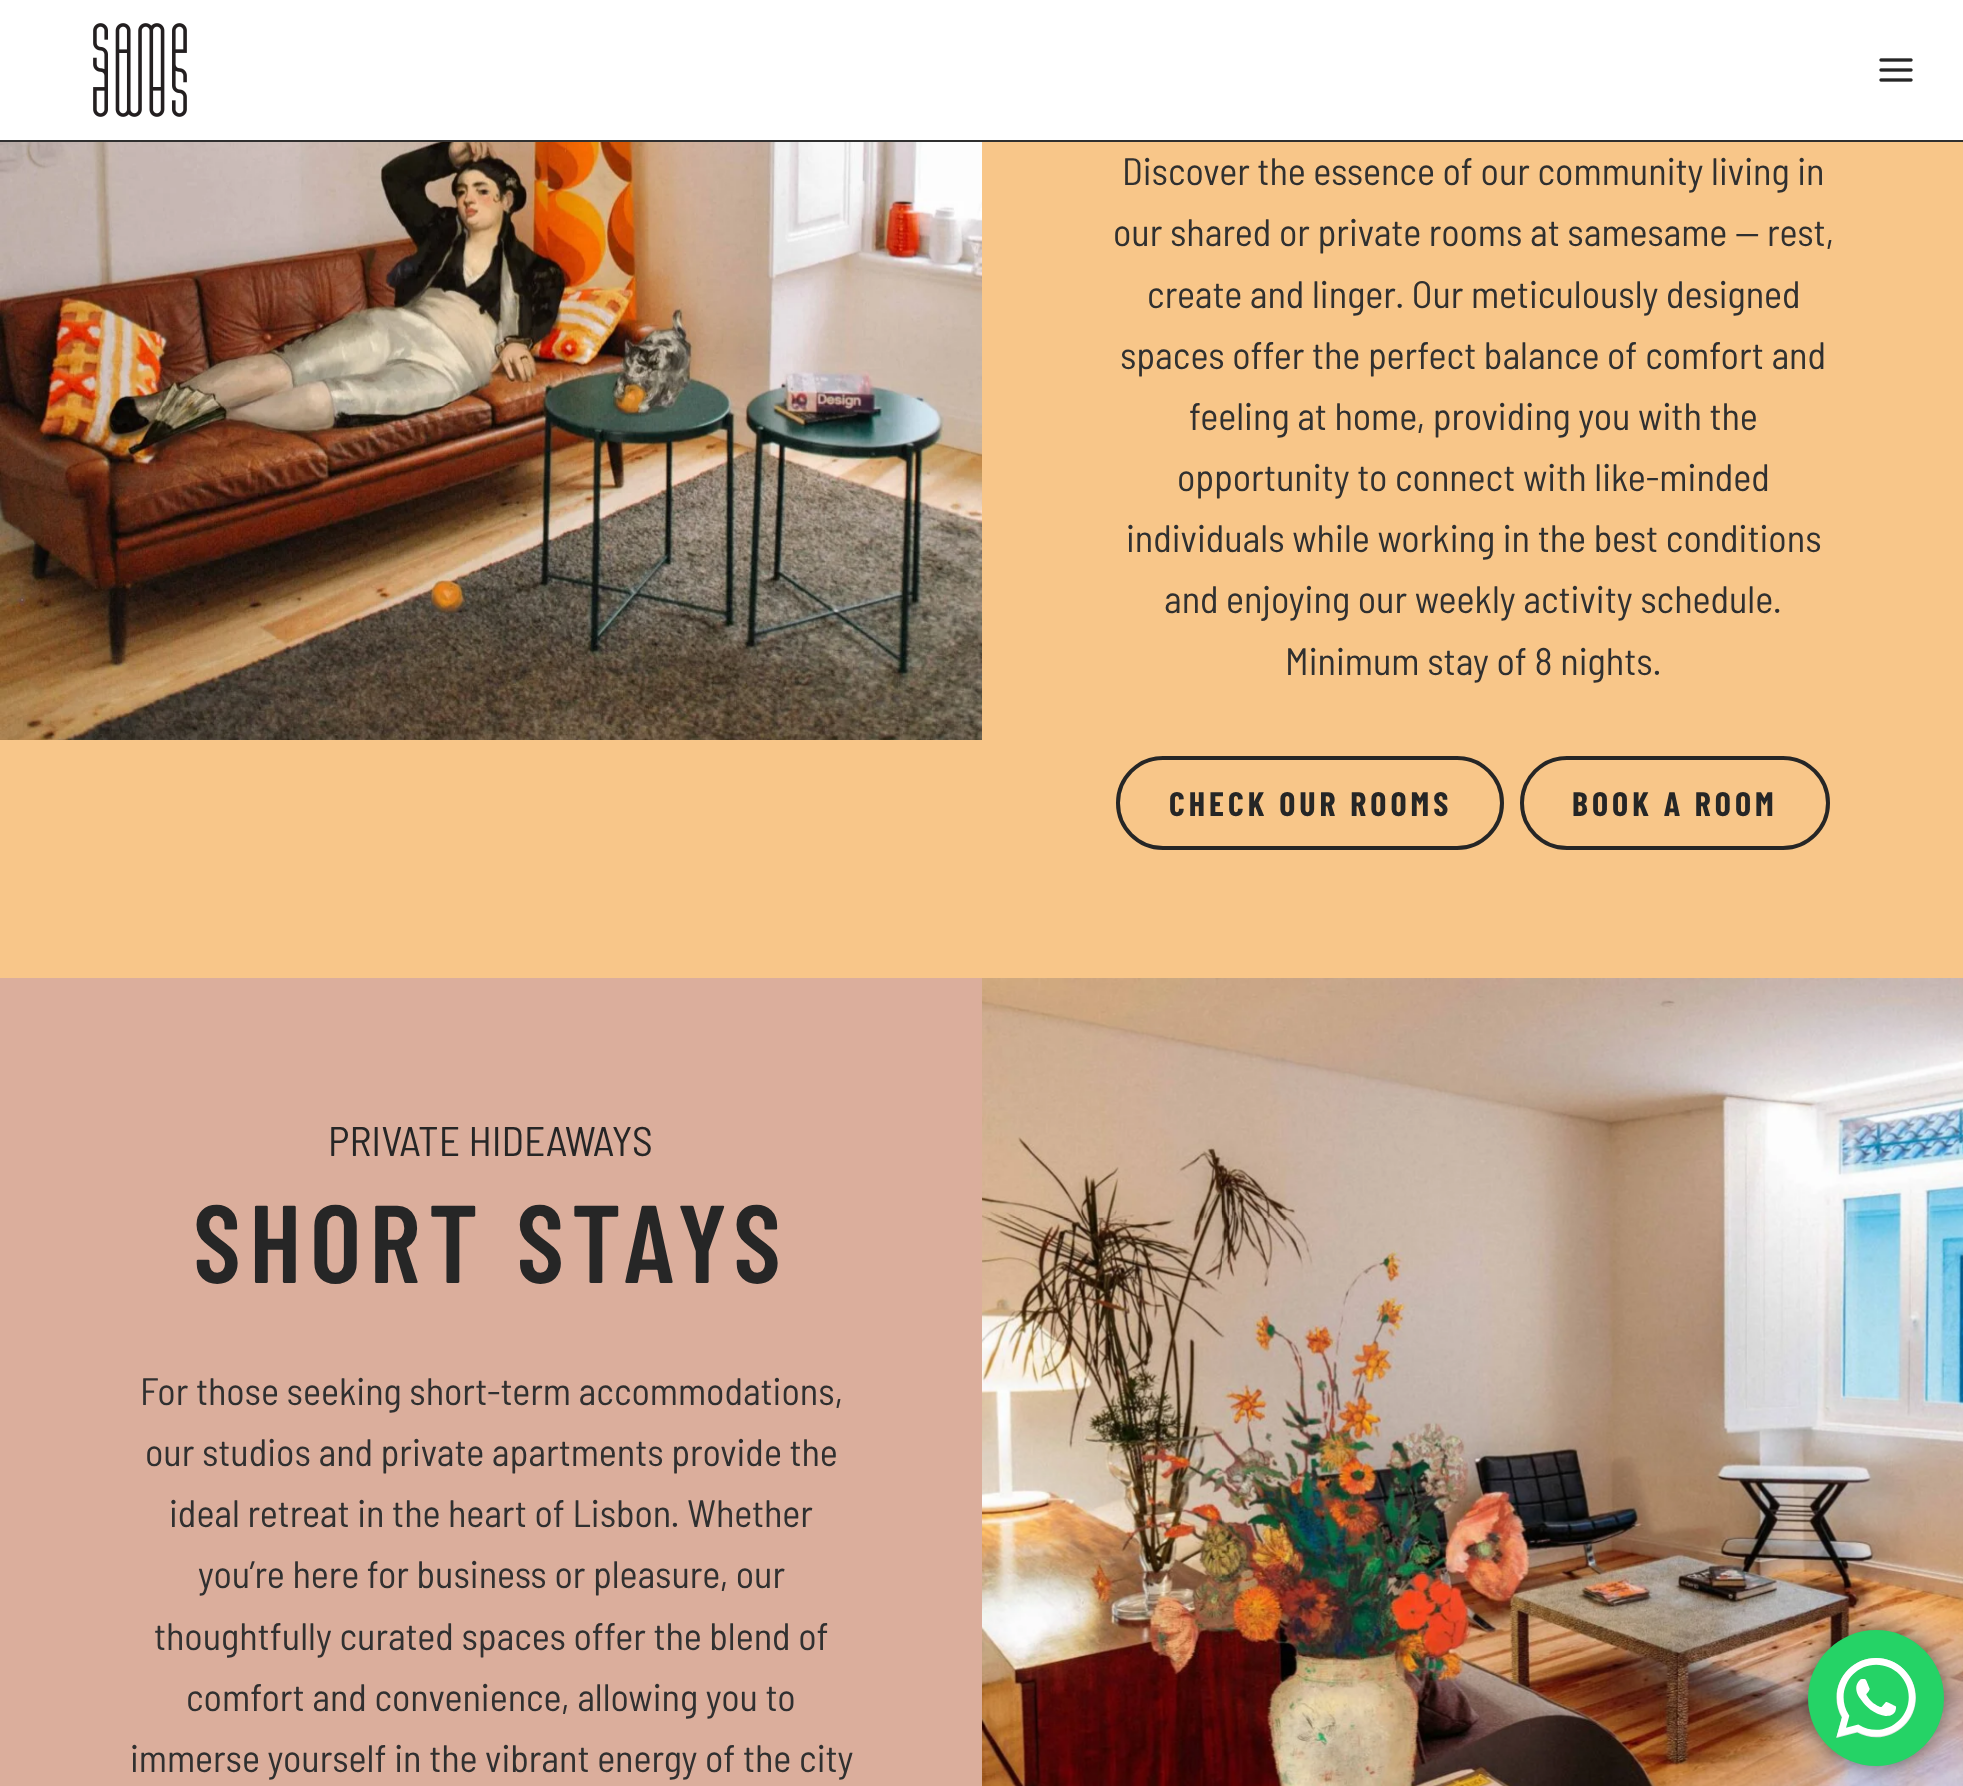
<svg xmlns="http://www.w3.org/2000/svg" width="1963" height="1786">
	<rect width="100%" height="100%" fill="#F8C689" />
	<rect x="0" y="0" width="1963" height="140" fill="#FFFFFF" />
	<rect x="0" y="140" width="1963" height="2" fill="#303030" />
	<image x="93" y="23" width="94" height="94" href="assets/img1.png" />
	<image x="1879" y="58" width="34" height="24" href="assets/img2.png" />
	<image x="0" y="142" width="982" height="598" href="assets/img3.png" />
	<g font-family="Barlow Semi Condensed" font-size="38.25" fill="#303030">
		<text x="1122" y="185">Discover the essence of our community living in</text>
		<text x="1113" y="246">our shared or private rooms at samesame — rest,</text>
		<text x="1147" y="308">create and linger. Our meticulously designed</text>
		<text x="1120" y="369">spaces offer the perfect balance of comfort and</text>
		<text x="1189" y="430">feeling at home, providing you with the</text>
		<text x="1177" y="491">opportunity to connect with like-minded</text>
		<text x="1126" y="552">individuals while working in the best conditions</text>
		<text x="1164" y="613">and enjoying our weekly activity schedule.</text>
		<text x="1285" y="675">Minimum stay of 8 nights.</text>
	</g>
	<rect x="1118" y="758" width="384" height="90" rx="45" fill="none" stroke="#262626" stroke-width="4" />
	<text x="1169" y="816" font-family="Barlow Condensed" font-size="34" font-weight="700" letter-spacing="4" fill="#262626">CHECK OUR ROOMS</text>
	<rect x="1522" y="758" width="306" height="90" rx="45" fill="none" stroke="#262626" stroke-width="4" />
	<text x="1572" y="816" font-family="Barlow Condensed" font-size="34" font-weight="700" letter-spacing="4" fill="#262626">BOOK A ROOM</text>
	<rect x="0" y="978" width="982" height="808" fill="#DBAE9C" />
	<text x="328" y="1156" font-family="Barlow Semi Condensed" font-size="41.5" fill="#262626">PRIVATE HIDEAWAYS</text>
	<text x="193" y="1283" font-family="Barlow Condensed" font-size="110.5" font-weight="600" letter-spacing="8" fill="#262626">SHORT STAYS</text>
	<g font-family="Barlow Semi Condensed" font-size="38.25" fill="#303030">
		<text x="140" y="1405">For those seeking short-term accommodations,</text>
		<text x="145" y="1466">our studios and private apartments provide the</text>
		<text x="169" y="1527">ideal retreat in the heart of Lisbon. Whether</text>
		<text x="198" y="1588">you’re here for business or pleasure, our</text>
		<text x="154" y="1650">thoughtfully curated spaces offer the blend of</text>
		<text x="186" y="1711">comfort and convenience, allowing you to</text>
		<text x="130" y="1772">immerse yourself in the vibrant energy of the city</text>
	</g>
	<image x="982" y="978" width="981" height="808" href="assets/img4.png" />
	<rect x="1808" y="1630" width="136" height="136" rx="68" fill="#000000" fill-opacity="0.5" filter="blur(11px)" />
	<circle cx="1876" cy="1698" r="68" fill="#25D366" />
	<image x="1836" y="1658" width="80" height="80" href="assets/img5.png" />
</svg>
